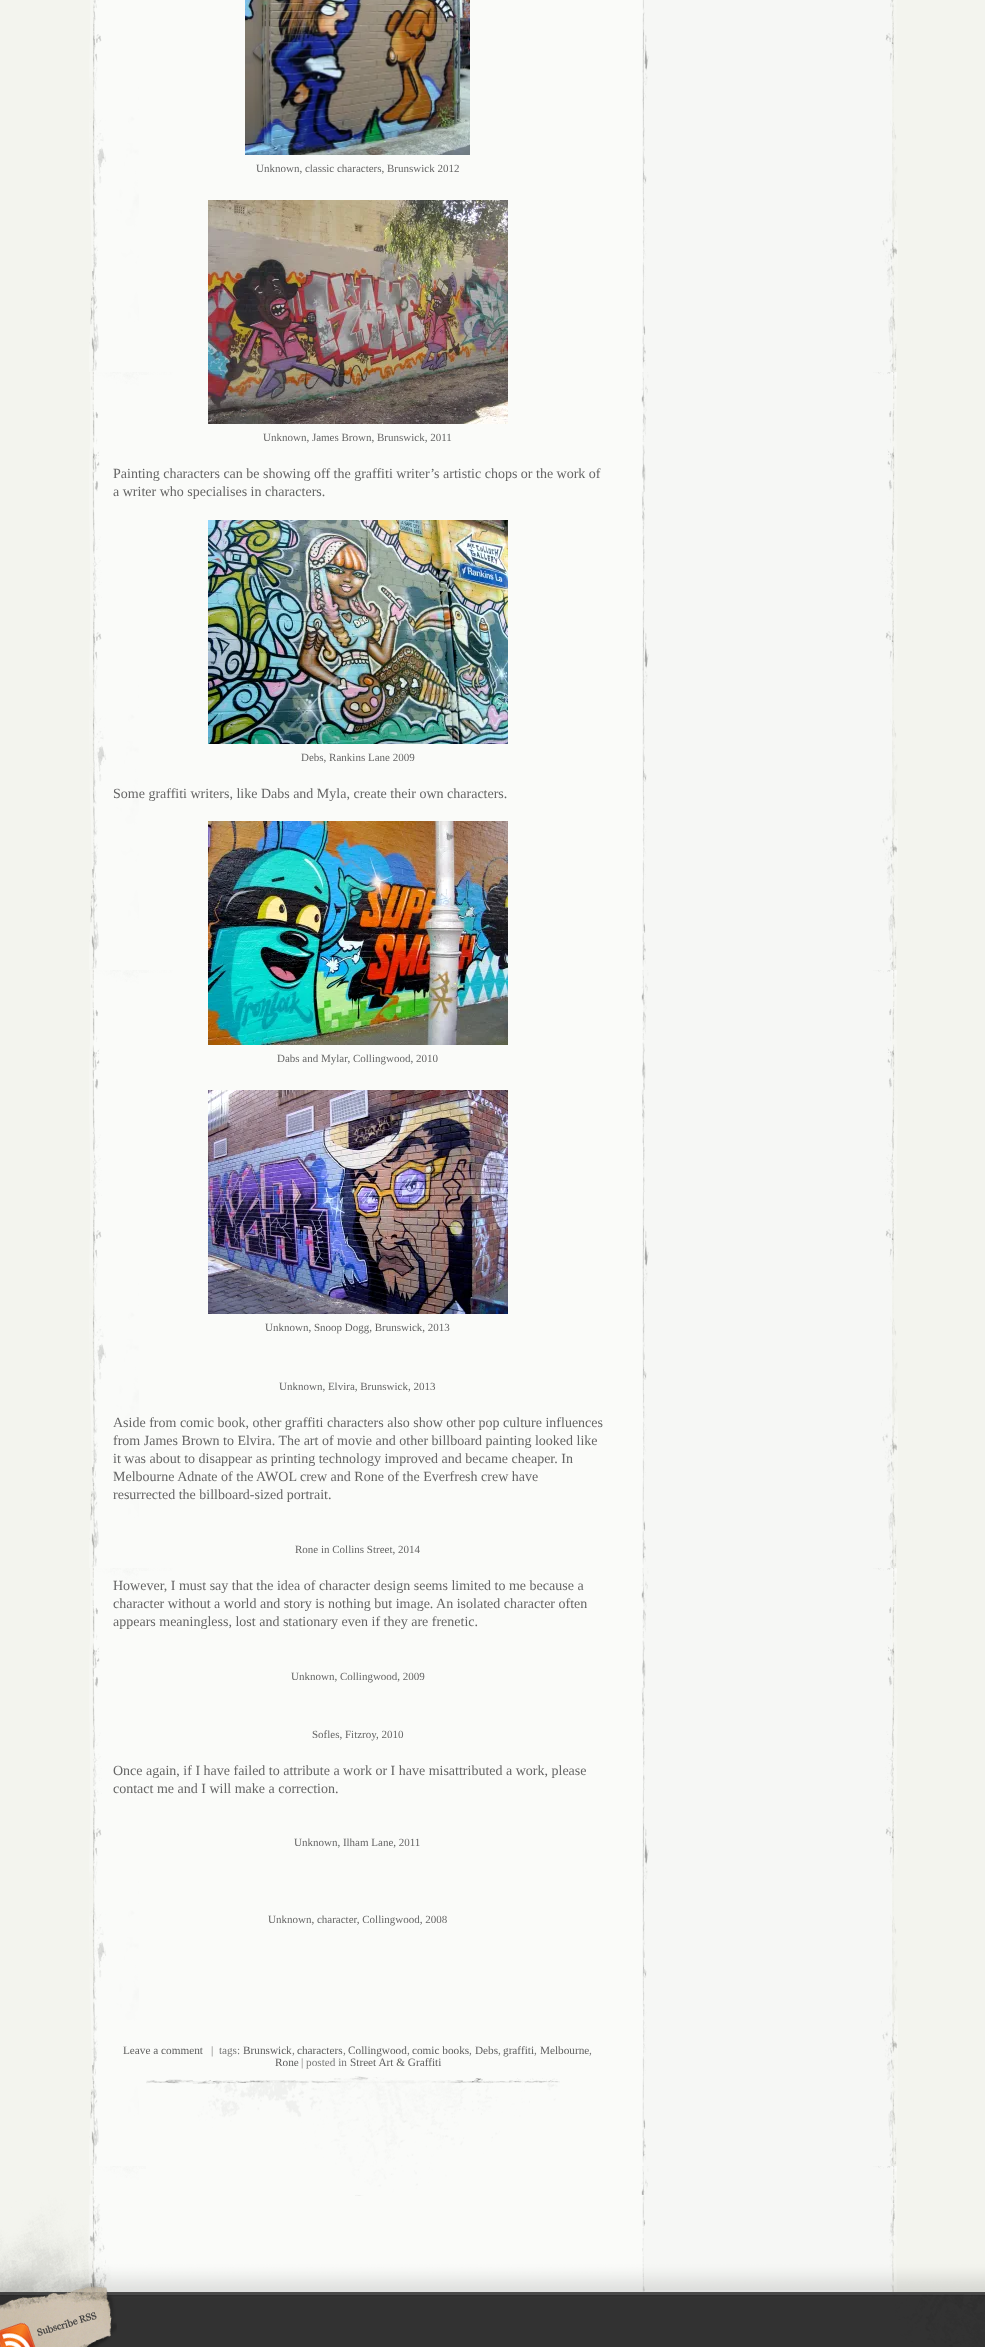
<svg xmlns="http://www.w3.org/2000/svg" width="985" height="2347">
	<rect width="100%" height="100%" fill="#F3F4EE" />
	<image x="89" y="0" width="809" height="2246" href="assets/img1.png" />
	<image x="245" y="0" width="225" height="155" href="assets/img2.png" />
	<text x="256" y="172" font-family="Liberation Serif" font-size="11" fill="#666666">Unknown, classic characters, Brunswick 2012</text>
	<image x="208" y="200" width="300" height="224" href="assets/img3.png" />
	<text x="263" y="441" font-family="Liberation Serif" font-size="11" fill="#666666">Unknown, James Brown, Brunswick, 2011</text>
	<g font-family="Liberation Serif" font-size="14" fill="#666666">
		<text x="113" y="478">Painting characters can be showing off the graffiti writer’s artistic chops or the work of</text>
		<text x="113" y="496">a writer who specialises in characters.</text>
	</g>
	<image x="208" y="520" width="300" height="224" href="assets/img4.png" />
	<text x="301" y="761" font-family="Liberation Serif" font-size="11" fill="#666666">Debs, Rankins Lane 2009</text>
	<text x="113" y="798" font-family="Liberation Serif" font-size="14" fill="#666666">Some graffiti writers, like Dabs and Myla, create their own characters.</text>
	<image x="208" y="821" width="300" height="224" href="assets/img5.png" />
	<text x="277" y="1062" font-family="Liberation Serif" font-size="11" fill="#666666">Dabs and Mylar, Collingwood, 2010</text>
	<image x="208" y="1090" width="300" height="224" href="assets/img6.png" />
	<g font-family="Liberation Serif" font-size="11" fill="#666666">
		<text x="265" y="1331">Unknown, Snoop Dogg, Brunswick, 2013</text>
		<text x="279" y="1390">Unknown, Elvira, Brunswick, 2013</text>
	</g>
	<g font-family="Liberation Serif" font-size="14" fill="#666666">
		<text x="113" y="1427">Aside from comic book, other graffiti characters also show other pop culture influences</text>
		<text x="113" y="1445">from James Brown to Elvira. The art of movie and other billboard painting looked like</text>
		<text x="113" y="1463">it was about to disappear as printing technology improved and became cheaper. In</text>
		<text x="113" y="1481">Melbourne Adnate of the AWOL crew and Rone of the Everfresh crew have</text>
		<text x="113" y="1499">resurrected the billboard-sized portrait.</text>
	</g>
	<text x="295" y="1553" font-family="Liberation Serif" font-size="11" fill="#666666">Rone in Collins Street, 2014</text>
	<g font-family="Liberation Serif" font-size="14" fill="#666666">
		<text x="113" y="1590">However, I must say that the idea of character design seems limited to me because a</text>
		<text x="113" y="1608">character without a world and story is nothing but image. An isolated character often</text>
		<text x="113" y="1626">appears meaningless, lost and stationary even if they are frenetic.</text>
	</g>
	<g font-family="Liberation Serif" font-size="11" fill="#666666">
		<text x="291" y="1680">Unknown, Collingwood, 2009</text>
		<text x="312" y="1738">Sofles, Fitzroy, 2010</text>
	</g>
	<g font-family="Liberation Serif" font-size="14" fill="#666666">
		<text x="113" y="1775">Once again, if I have failed to attribute a work or I have misattributed a work, please</text>
		<text x="113" y="1793">contact me and I will make a correction.</text>
	</g>
	<g font-family="Liberation Serif" font-size="11" fill="#666666">
		<text x="294" y="1846">Unknown, Ilham Lane, 2011</text>
		<text x="268" y="1923">Unknown, character, Collingwood, 2008</text>
	</g>
	<text x="123" y="2054" font-family="Liberation Serif" font-size="11.25" fill="#5F5F5F">Leave a comment</text>
	<text x="211" y="2054" font-family="Liberation Serif" font-size="11.25" fill="#797979" xml:space="preserve">|  tags:</text>
	<text x="243" y="2054" font-family="Liberation Serif" font-size="11.25" fill="#5F5F5F">Brunswick</text>
	<text x="292" y="2054" font-family="Liberation Serif" font-size="11.25" fill="#797979">,</text>
	<text x="297" y="2054" font-family="Liberation Serif" font-size="11.25" fill="#5F5F5F">characters</text>
	<text x="343" y="2054" font-family="Liberation Serif" font-size="11.25" fill="#797979">,</text>
	<text x="348" y="2054" font-family="Liberation Serif" font-size="11.25" fill="#5F5F5F">Collingwood</text>
	<text x="407" y="2054" font-family="Liberation Serif" font-size="11.25" fill="#797979">,</text>
	<text x="412" y="2054" font-family="Liberation Serif" font-size="11.25" fill="#5F5F5F">comic books</text>
	<text x="469" y="2054" font-family="Liberation Serif" font-size="11.25" fill="#797979">,</text>
	<text x="475" y="2054" font-family="Liberation Serif" font-size="11.25" fill="#5F5F5F">Debs</text>
	<text x="498" y="2054" font-family="Liberation Serif" font-size="11.25" fill="#797979">,</text>
	<text x="503" y="2054" font-family="Liberation Serif" font-size="11.25" fill="#5F5F5F">graffiti</text>
	<text x="534" y="2054" font-family="Liberation Serif" font-size="11.25" fill="#797979">,</text>
	<text x="540" y="2054" font-family="Liberation Serif" font-size="11.25" fill="#5F5F5F">Melbourne</text>
	<text x="589" y="2054" font-family="Liberation Serif" font-size="11.25" fill="#797979">,</text>
	<text x="275" y="2066" font-family="Liberation Serif" font-size="11.25" fill="#5F5F5F">Rone</text>
	<text x="301" y="2066" font-family="Liberation Serif" font-size="11.25" fill="#797979">| posted in</text>
	<text x="350" y="2066" font-family="Liberation Serif" font-size="11.25" fill="#5F5F5F">Street Art &amp; Graffiti</text>
	<image x="0" y="2195" width="985" height="152" href="assets/img8.png" />
	<image x="146" y="2076" width="414" height="120" href="assets/img7.png" />
	<image x="0" y="2283" width="117" height="64" href="assets/img9.png" />
</svg>
